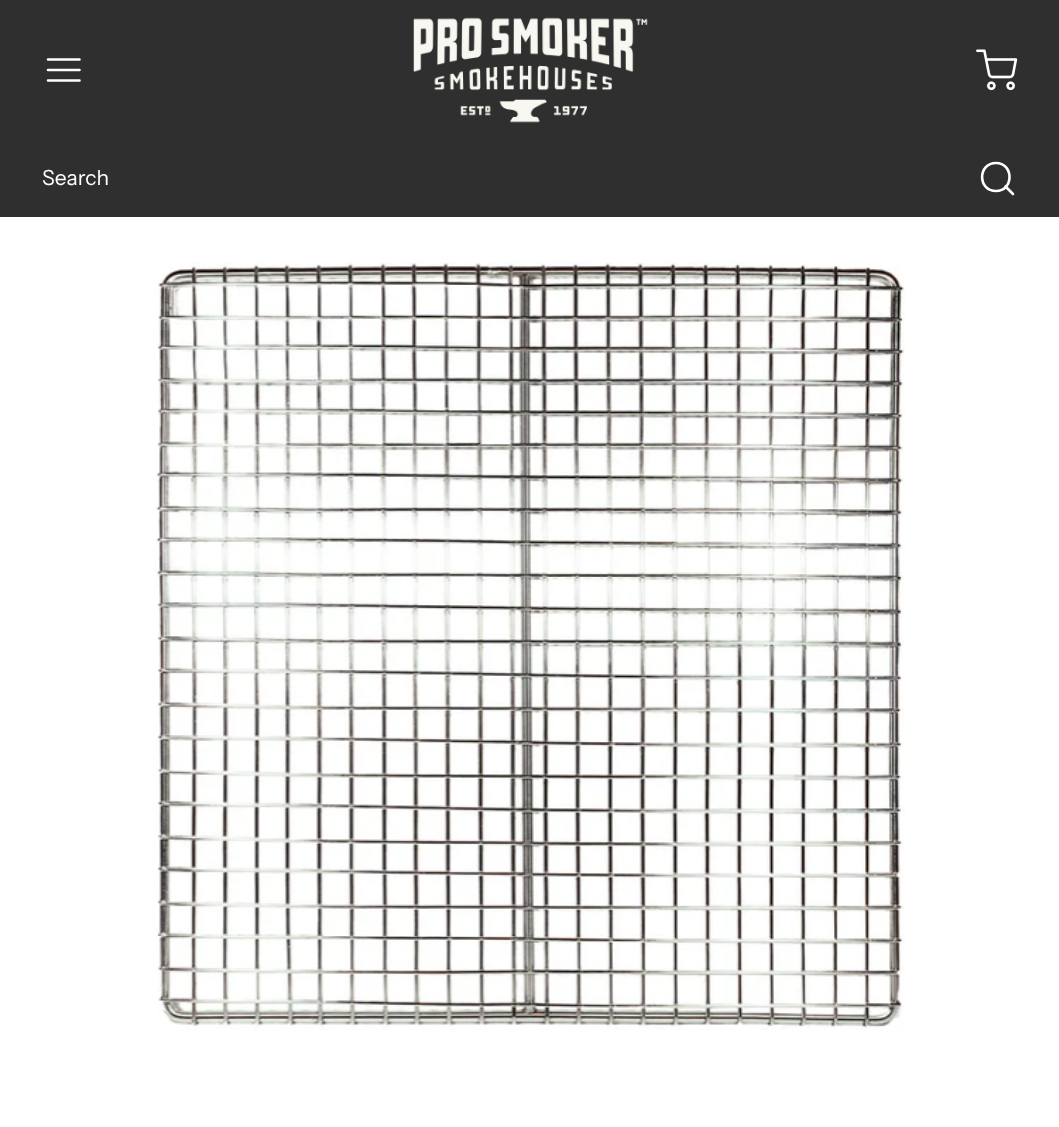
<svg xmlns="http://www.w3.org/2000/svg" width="1059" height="1127">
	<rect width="100%" height="100%" fill="#FFFFFF" />
	<rect x="0" y="0" width="1059" height="217" fill="#2F2F2F" />
	<path d="M48 70H79.5M48 59.5H79.5M48 80.5H79.5" fill="none" stroke="#FFFFFF" stroke-width="2.6" stroke-linecap="round" stroke-linejoin="round" />
	<image x="413" y="17" width="235" height="106" href="assets/img1.png" />
	<image x="976" y="49" width="42" height="42" href="assets/img2.png" />
	<text x="42" y="185" font-family="Instrument Sans" font-size="21" fill="#FFFFFF">Search</text>
	<path d="M996 191C1014 191 1014 163 996 163C977.5 163 977.5 191 996 191ZM1013 194L1005.5 186.5" fill="none" stroke="#FFFFFF" stroke-width="2.6" stroke-linecap="round" stroke-linejoin="round" />
	<image x="153" y="262" width="752" height="768" href="assets/img3.png" />
</svg>
